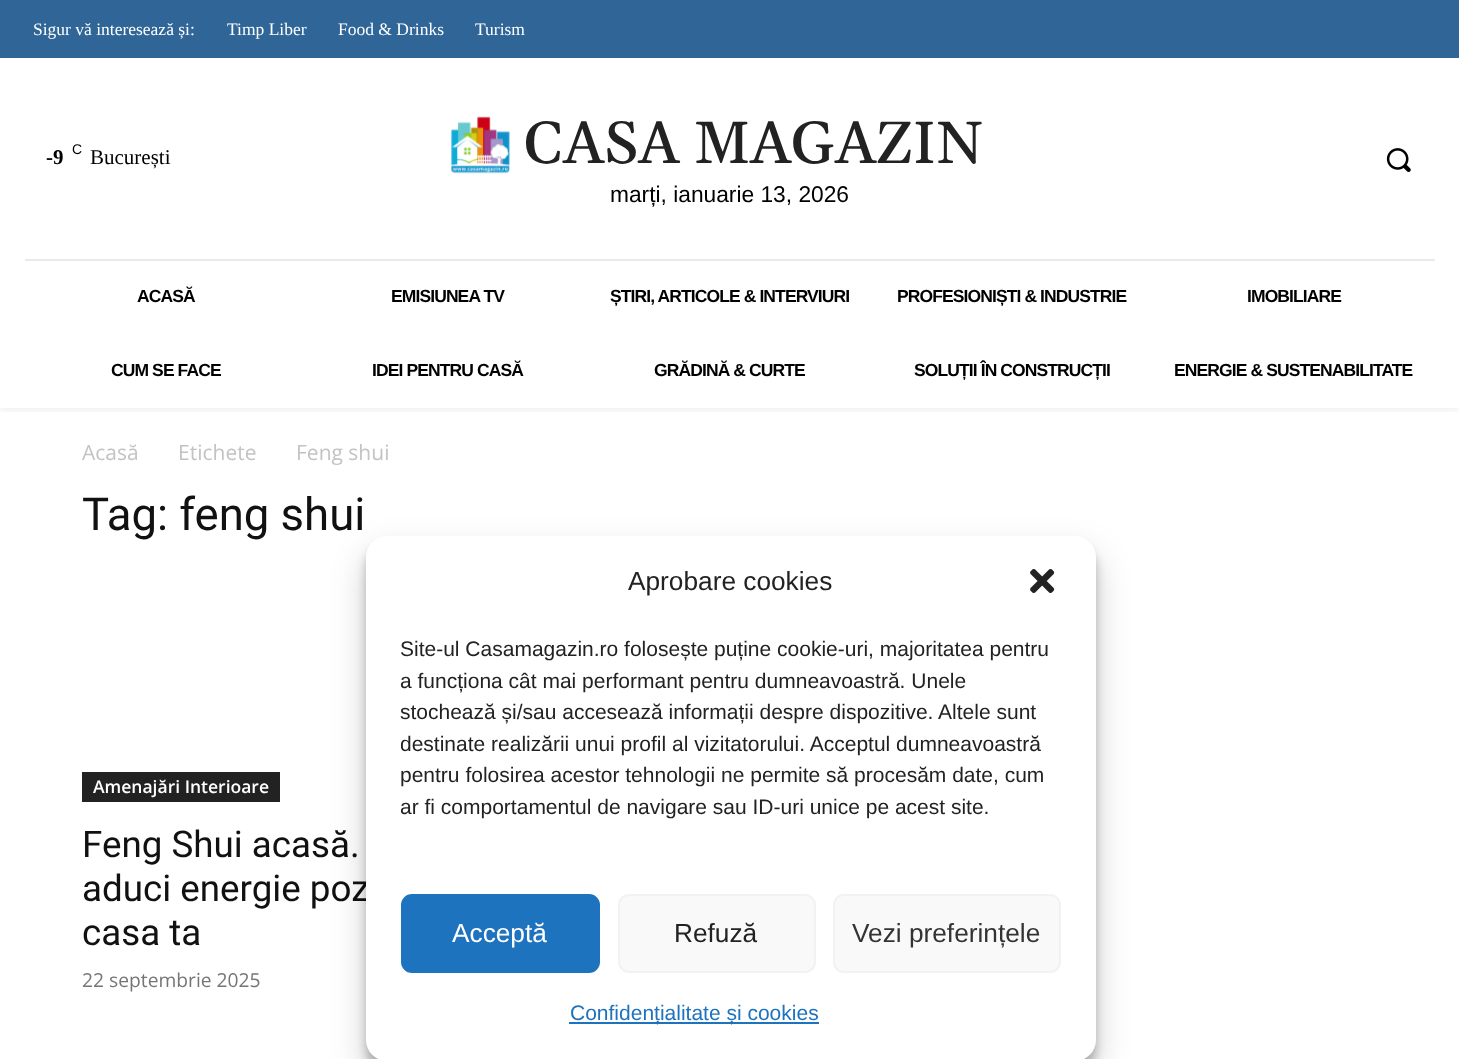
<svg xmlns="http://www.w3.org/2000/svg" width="1459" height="1059">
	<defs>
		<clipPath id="clip1"><rect x="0" y="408" width="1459" height="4" /></clipPath>
		<clipPath id="clip2"><rect x="401" y="634" width="660" height="225" /></clipPath>
	</defs>
	<rect width="100%" height="100%" fill="#FFFFFF" />
	<rect x="0" y="0" width="1459" height="58" fill="#2F6697" />
	<g font-family="Liberation Serif" font-size="17.5" fill="#FFFFFF">
		<text x="33" y="35">Sigur vă interesează și:</text>
		<text x="227" y="35">Timp Liber</text>
		<text x="338" y="35">Food &amp; Drinks</text>
		<text x="475" y="35">Turism</text>
	</g>
	<text x="46" y="164" font-family="Liberation Serif" font-size="21" font-weight="700" fill="#000000">-9</text>
	<text x="72" y="154" font-family="Liberation Sans" font-size="14" fill="#000000">C</text>
	<text x="90" y="164" font-family="Liberation Serif" font-size="21" fill="#000000">București</text>
	<image x="451" y="116" width="59" height="58" href="assets/img1.png" />
	<text x="524" y="163" font-family="Gelasio" font-size="59.5" font-weight="500" fill="#222222">CASA MAGAZIN</text>
	<text x="610" y="202" font-family="Liberation Sans" font-size="22.75" fill="#000000">marți, ianuarie 13, 2026</text>
	<image x="1386" y="148" width="25" height="24" href="assets/img2.png" />
	<rect x="25" y="259" width="1410" height="2" fill="#EAEAEA" />
	<g clip-path="url(#clip1)">
		<rect x="0" y="210" width="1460" height="201" fill="#000000" fill-opacity="0.06" filter="blur(3.5px)" />
	</g>
	<g font-family="Liberation Sans" font-size="17.5" font-weight="700" letter-spacing="-0.9" fill="#000000">
		<text x="137" y="302">ACASĂ</text>
		<text x="391" y="302">EMISIUNEA TV</text>
		<text x="610" y="302">ȘTIRI, ARTICOLE &amp; INTERVIURI</text>
		<text x="897" y="302">PROFESIONIȘTI &amp; INDUSTRIE</text>
		<text x="1247" y="302">IMOBILIARE</text>
		<text x="111" y="376">CUM SE FACE</text>
		<text x="372" y="376">IDEI PENTRU CASĂ</text>
		<text x="654" y="376">GRĂDINĂ &amp; CURTE</text>
		<text x="914" y="376">SOLUȚII ÎN CONSTRUCȚII</text>
		<text x="1174" y="376">ENERGIE &amp; SUSTENABILITATE</text>
	</g>
	<g font-family="Open Sans" font-size="21" fill="#C3C3C3">
		<text x="82" y="460">Acasă</text>
		<text x="178" y="460">Etichete</text>
		<text x="296" y="460">Feng shui</text>
	</g>
	<text x="82" y="530" font-family="Roboto" font-size="45.5" fill="#111111">Tag: feng shui</text>
	<rect x="82" y="772" width="198" height="30" fill="#222222" />
	<text x="93" y="793" font-family="Open Sans" font-size="17.5" font-weight="600" fill="#FFFFFF">Amenajări Interioare</text>
	<g font-family="Roboto" font-size="36.75" fill="#111111">
		<text x="82" y="857">Feng Shui acasă.</text>
		<text x="82" y="901">aduci energie poz</text>
		<text x="82" y="945">casa ta</text>
	</g>
	<text x="82" y="987" font-family="Open Sans" font-size="19.25" fill="#767676">22 septembrie 2025</text>
	<rect x="366" y="546" width="730" height="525" rx="21" fill="#000000" fill-opacity="0.23" filter="blur(5px)" />
	<rect x="366" y="553" width="730" height="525" rx="21" fill="#000000" fill-opacity="0.19" filter="blur(17.5px)" />
	<rect x="366" y="536" width="730" height="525" rx="21" fill="#FFFFFF" />
	<text x="628" y="590" font-family="Liberation Sans" font-size="26.25" fill="#222222">Aprobare cookies</text>
	<image x="1030" y="569" width="25" height="24" href="assets/img3.png" />
	<g font-family="Liberation Sans" font-size="21" fill="#222222">
		<text x="400" y="656">Site-ul Casamagazin.ro folosește puține cookie-uri, majoritatea pentru</text>
		<text x="400" y="688">a funcționa cât mai performant pentru dumneavoastră. Unele</text>
		<text x="400" y="719">stochează și/sau accesează informații despre dispozitive. Altele sunt</text>
	</g>
	<g clip-path="url(#clip2)">
		<text x="400" y="751" font-family="Liberation Sans" font-size="21" fill="#222222">destinate realizării unui profil al vizitatorului. Acceptul dumneavoastră</text>
	</g>
	<g font-family="Liberation Sans" font-size="21" fill="#222222">
		<text x="400" y="782">pentru folosirea acestor tehnologii ne permite să procesăm date, cum</text>
		<text x="400" y="814">ar fi comportamentul de navigare sau ID-uri unice pe acest site.</text>
	</g>
	<rect x="402" y="895" width="197" height="77" rx="10" fill="#1E73BE" stroke="#1E73BE" stroke-width="2" />
	<text x="452" y="942" font-family="Liberation Sans" font-size="26.25" fill="#FFFFFF">Acceptă</text>
	<rect x="619" y="895" width="196" height="77" rx="10" fill="#F9F9F9" stroke="#F2F2F2" stroke-width="2" />
	<text x="674" y="942" font-family="Liberation Sans" font-size="26.25" fill="#222222">Refuză</text>
	<rect x="834" y="895" width="226" height="77" rx="10" fill="#F9F9F9" stroke="#F2F2F2" stroke-width="2" />
	<text x="852" y="942" font-family="Liberation Sans" font-size="26.25" fill="#333333">Vezi preferințele</text>
	<rect x="569" y="1022" width="250" height="2" fill="#1E73BE" />
	<text x="570" y="1020" font-family="Liberation Sans" font-size="21" fill="#1E73BE">Confidențialitate și cookies</text>
</svg>
